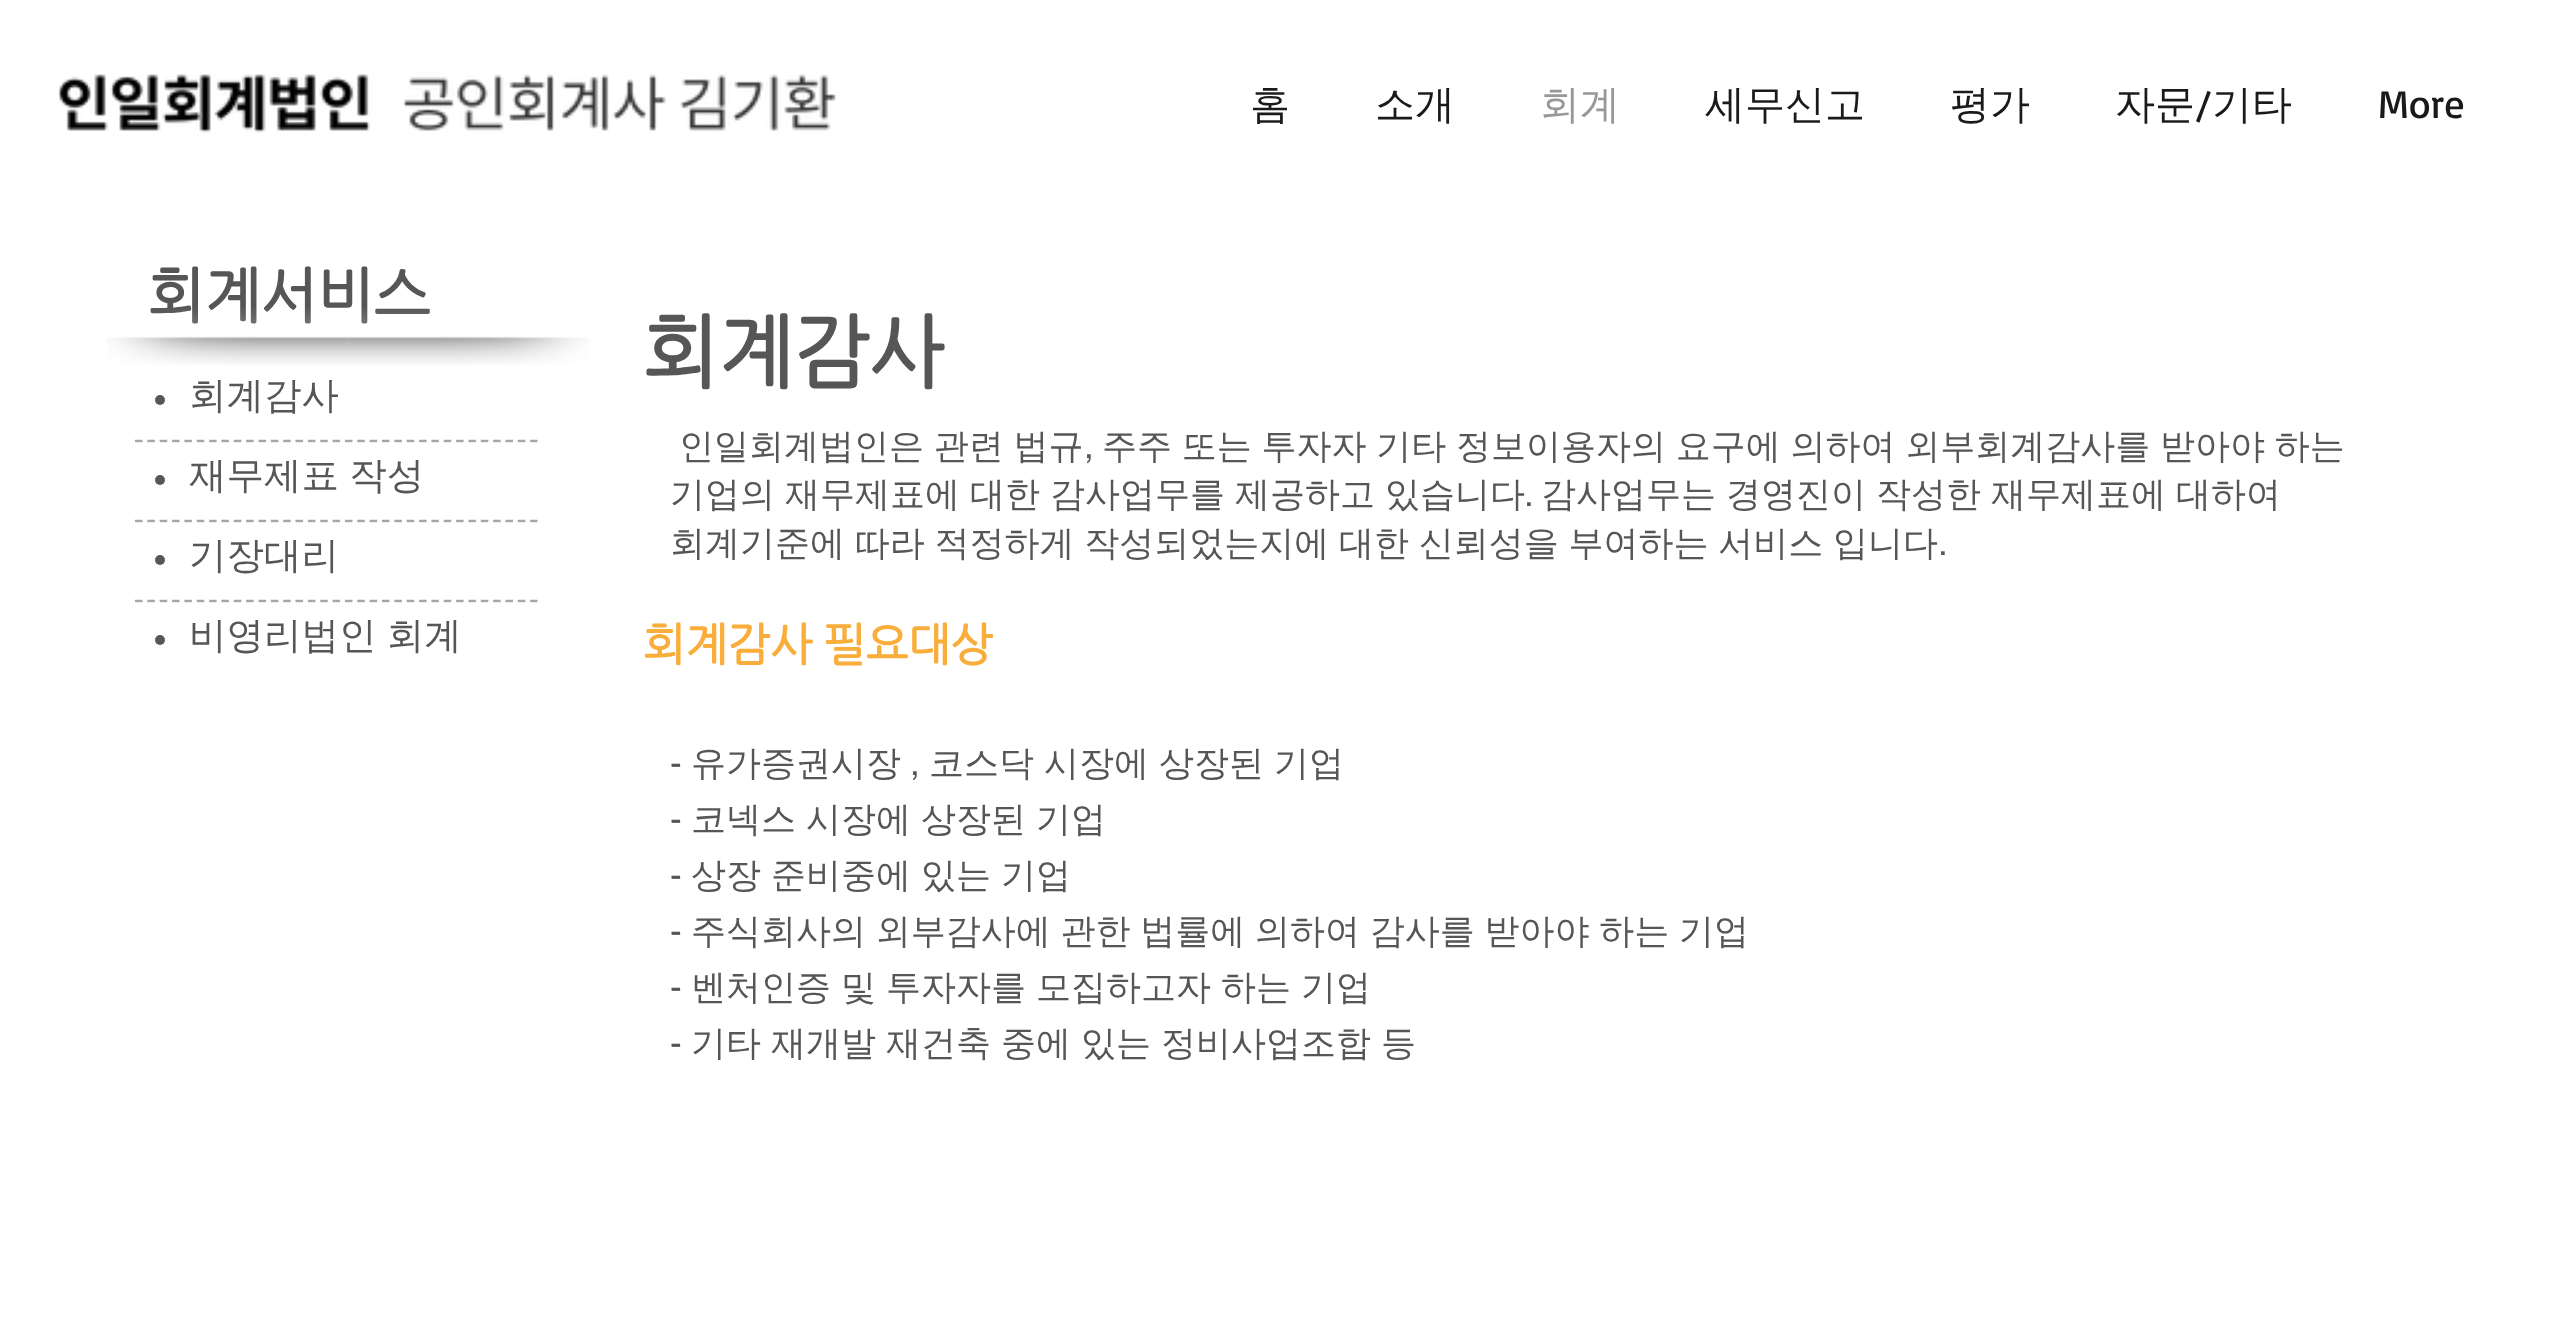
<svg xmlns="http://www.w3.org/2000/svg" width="2565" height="1328">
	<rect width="100%" height="100%" fill="#FFFFFF" />
	<image x="58" y="74" width="778" height="59" href="assets/img1.png" />
	<g font-family="WenQuanYi Zen Hei" font-size="40" font-weight="500" fill="#1A1A1A">
		<text x="1250" y="118">홈</text>
		<text x="1375" y="118">소개</text>
	</g>
	<text x="1540" y="118" font-family="WenQuanYi Zen Hei" font-size="40" font-weight="500" fill="#999797">회계</text>
	<g font-family="WenQuanYi Zen Hei" font-size="40" font-weight="500" fill="#1A1A1A">
		<text x="1705" y="118">세무신고</text>
		<text x="1950" y="118">평가</text>
		<text x="2115" y="118">자문</text>
	</g>
	<text x="2195" y="118" font-family="Basic" font-size="40" fill="#1A1A1A">/</text>
	<text x="2212" y="118" font-family="WenQuanYi Zen Hei" font-size="40" font-weight="500" fill="#1A1A1A">기타</text>
	<text x="2378" y="118" font-family="Basic" font-size="40" fill="#1A1A1A">More</text>
	<text x="148" y="315" font-family="NanumGothic" font-size="60" font-weight="700" fill="#565656">회계서비스</text>
	<image x="347" y="308" width="242" height="57" href="assets/img3.png" />
	<image x="107" y="308" width="241" height="57" href="assets/img2.png" />
	<circle cx="160" cy="400" r="5" fill="#565656" />
	<text x="189" y="408" font-family="WenQuanYi Zen Hei" font-size="37.5" font-weight="500" fill="#565656">회계감사</text>
	<path d="M135 441H537.5" fill="none" stroke="#A6A6A6" stroke-width="2.5" stroke-dasharray="7.5 4.85" />
	<path d="M135 444H537.5" fill="none" stroke="#FFFFFF" stroke-width="2.5" stroke-dasharray="7.5 4.85" />
	<circle cx="160" cy="480" r="5" fill="#565656" />
	<text x="189" y="488" word-spacing="-1" font-family="WenQuanYi Zen Hei" font-size="37.5" font-weight="500" fill="#565656">재무제표 작성</text>
	<path d="M135 521H537.5" fill="none" stroke="#A6A6A6" stroke-width="2.5" stroke-dasharray="7.5 4.85" />
	<path d="M135 524H537.5" fill="none" stroke="#FFFFFF" stroke-width="2.5" stroke-dasharray="7.5 4.85" />
	<circle cx="160" cy="560" r="5" fill="#565656" />
	<text x="189" y="568" font-family="WenQuanYi Zen Hei" font-size="37.5" font-weight="500" fill="#565656">기장대리</text>
	<path d="M135 601H537.5" fill="none" stroke="#A6A6A6" stroke-width="2.5" stroke-dasharray="7.5 4.85" />
	<path d="M135 604H537.5" fill="none" stroke="#FFFFFF" stroke-width="2.5" stroke-dasharray="7.5 4.85" />
	<circle cx="160" cy="640" r="5" fill="#565656" />
	<text x="189" y="648" word-spacing="-1" font-family="WenQuanYi Zen Hei" font-size="37.5" font-weight="500" fill="#565656">비영리법인 회계</text>
	<text x="643" y="378" font-family="NanumGothic" font-size="80" font-weight="700" fill="#565656">회계감사</text>
	<text x="679" y="458" word-spacing="-0.75" font-family="WenQuanYi Zen Hei" font-size="35" font-weight="500" fill="#565656">인일회계법인은 관련 법규</text>
	<text x="1084" y="458" font-family="helvetica" font-size="35" fill="#565656">,</text>
	<g font-family="WenQuanYi Zen Hei" font-size="35" font-weight="500" fill="#565656">
		<text x="1102" y="458" word-spacing="-0.75">주주 또는 투자자 기타 정보이용자의 요구에 의하여 외부회계감사를 받아야 하는</text>
		<text x="670" y="506" word-spacing="-0.5">기업의 재무제표에 대한 감사업무를 제공하고 있습니다</text>
	</g>
	<text x="1524" y="506" font-family="helvetica" font-size="35" fill="#565656">.</text>
	<g font-family="WenQuanYi Zen Hei" font-size="35" font-weight="500" fill="#565656">
		<text x="1541" y="506" word-spacing="-0.5">감사업무는 경영진이 작성한 재무제표에 대하여</text>
		<text x="670" y="555" word-spacing="-0.75">회계기준에 따라 적정하게 작성되었는지에 대한 신뢰성을 부여하는 서비스 입니다</text>
	</g>
	<text x="1938" y="555" font-family="helvetica" font-size="35" fill="#565656">.</text>
	<text x="643" y="659" font-family="NanumGothic" font-size="45" font-weight="700" fill="#F9AD3B">회계감사 필요대상</text>
	<text x="670" y="775" font-family="helvetica" font-size="35" fill="#565656">-</text>
	<g font-family="WenQuanYi Zen Hei" font-size="35" font-weight="500" fill="#565656">
		<text x="691" y="775">유가증권시장</text>
		<text x="929" y="775" word-spacing="-0.5">코스닥 시장에 상장된 기업</text>
	</g>
	<g font-family="helvetica" font-size="35" fill="#565656">
		<text x="910" y="775">,</text>
		<text x="670" y="831">-</text>
	</g>
	<text x="691" y="831" word-spacing="-0.5" font-family="WenQuanYi Zen Hei" font-size="35" font-weight="500" fill="#565656">코넥스 시장에 상장된 기업</text>
	<text x="670" y="887" font-family="helvetica" font-size="35" fill="#565656">-</text>
	<text x="691" y="887" word-spacing="-0.5" font-family="WenQuanYi Zen Hei" font-size="35" font-weight="500" fill="#565656">상장 준비중에 있는 기업</text>
	<text x="670" y="943" font-family="helvetica" font-size="35" fill="#565656">-</text>
	<text x="691" y="943" word-spacing="-0.75" font-family="WenQuanYi Zen Hei" font-size="35" font-weight="500" fill="#565656">주식회사의 외부감사에 관한 법률에 의하여 감사를 받아야 하는 기업</text>
	<text x="670" y="999" font-family="helvetica" font-size="35" fill="#565656">-</text>
	<text x="691" y="999" word-spacing="-0.5" font-family="WenQuanYi Zen Hei" font-size="35" font-weight="500" fill="#565656">벤처인증 및 투자자를 모집하고자 하는 기업</text>
	<text x="670" y="1055" font-family="helvetica" font-size="35" fill="#565656">-</text>
	<text x="691" y="1055" word-spacing="-0.5" font-family="WenQuanYi Zen Hei" font-size="35" font-weight="500" fill="#565656">기타 재개발 재건축 중에 있는 정비사업조합 등</text>
</svg>
